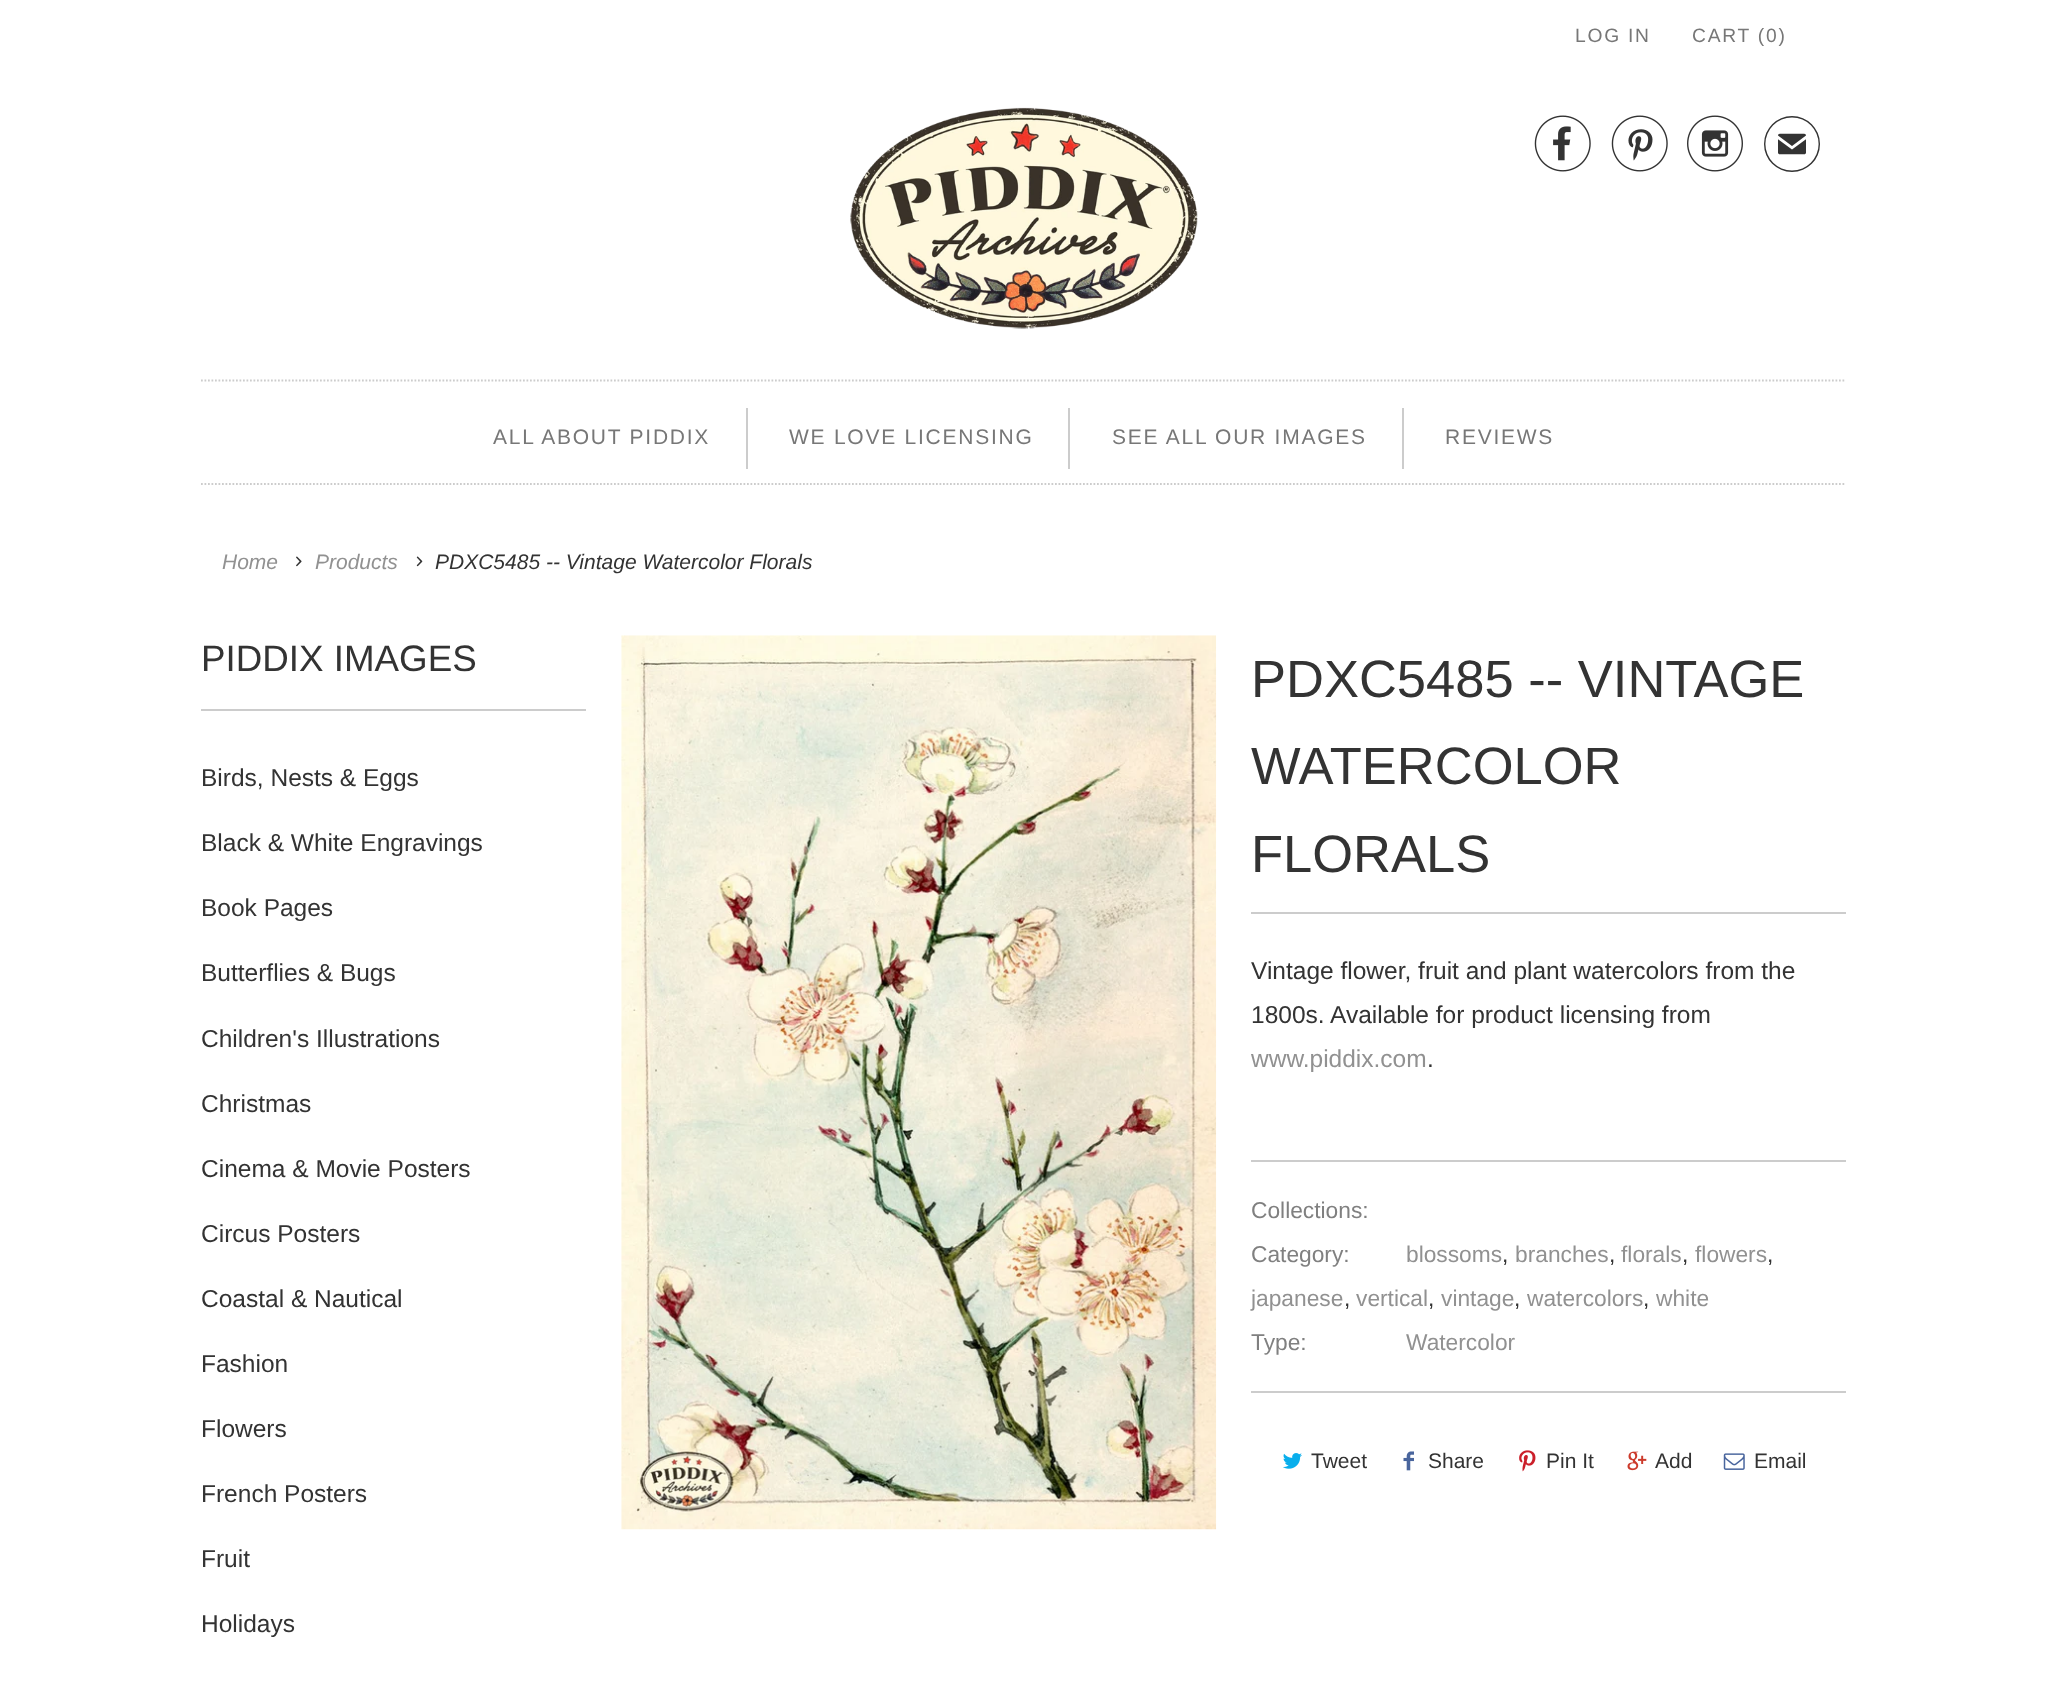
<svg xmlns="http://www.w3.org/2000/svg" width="2047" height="1684">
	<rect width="100%" height="100%" fill="#FFFFFF" />
	<g font-family="Liberation Sans" font-size="19.25" letter-spacing="1.75" fill="#777777">
		<text x="1575" y="42">LOG IN</text>
		<text x="1692" y="42">CART (0)</text>
	</g>
	<image x="850" y="107" width="348" height="222" href="assets/img1.png" />
	<image x="1534" y="115" width="57" height="57" href="assets/img2.png" />
	<image x="1611" y="115" width="57" height="57" href="assets/img3.png" />
	<image x="1687" y="115" width="56" height="57" href="assets/img4.png" />
	<text x="1764" y="172" font-family="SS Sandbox" font-size="56" fill="#333333">✉</text>
	<path d="M201 380.5H1846" fill="none" stroke="#CCCCCC" stroke-width="1.8" stroke-dasharray="1.75 1.75" />
	<path d="M201 484H1846" fill="none" stroke="#CCCCCC" stroke-width="1.8" stroke-dasharray="1.75 1.75" />
	<rect x="746" y="408" width="2" height="61" fill="#CCCCCC" />
	<text x="493" y="444" font-family="Liberation Sans" font-size="21" letter-spacing="1.75" fill="#777777">ALL ABOUT PIDDIX</text>
	<rect x="1068" y="408" width="2" height="61" fill="#CCCCCC" />
	<text x="789" y="444" font-family="Liberation Sans" font-size="21" letter-spacing="1.75" fill="#777777">WE LOVE LICENSING</text>
	<rect x="1402" y="408" width="2" height="61" fill="#CCCCCC" />
	<g font-family="Liberation Sans" font-size="21" letter-spacing="1.75" fill="#777777">
		<text x="1112" y="444">SEE ALL OUR IMAGES</text>
		<text x="1445" y="444">REVIEWS</text>
	</g>
	<text x="222" y="569" font-family="Liberation Sans" font-size="21" font-style="italic" fill="#919191">Home</text>
	<image x="296" y="556" width="6" height="11" href="assets/img5.png" />
	<text x="315" y="569" font-family="Liberation Sans" font-size="21" font-style="italic" fill="#919191">Products</text>
	<image x="416" y="556" width="7" height="11" href="assets/img6.png" />
	<text x="435" y="569" font-family="Liberation Sans" font-size="21" font-style="italic" fill="#333333">PDXC5485 -- Vintage Watercolor Florals</text>
	<rect x="201" y="709" width="385" height="2" fill="#CCCCCC" />
	<text x="201" y="671" font-family="Liberation Sans" font-size="36.75" fill="#333333">PIDDIX IMAGES</text>
	<g font-family="Liberation Sans" font-size="24.5" fill="#333333">
		<text x="201" y="786">Birds, Nests &amp; Eggs</text>
		<text x="201" y="851">Black &amp; White Engravings</text>
		<text x="201" y="916">Book Pages</text>
		<text x="201" y="981">Butterflies &amp; Bugs</text>
		<text x="201" y="1047">Children's Illustrations</text>
		<text x="201" y="1112">Christmas</text>
		<text x="201" y="1177">Cinema &amp; Movie Posters</text>
		<text x="201" y="1242">Circus Posters</text>
		<text x="201" y="1307">Coastal &amp; Nautical</text>
		<text x="201" y="1372">Fashion</text>
		<text x="201" y="1437">Flowers</text>
		<text x="201" y="1502">French Posters</text>
		<text x="201" y="1567">Fruit</text>
		<text x="201" y="1632">Holidays</text>
	</g>
	<image x="621" y="635" width="596" height="895" href="assets/img7.png" />
	<rect x="1251" y="912" width="595" height="2" fill="#CCCCCC" />
	<g font-family="Liberation Sans" font-size="52.5" fill="#333333">
		<text x="1251" y="697">PDXC5485 -- VINTAGE</text>
		<text x="1251" y="784">WATERCOLOR</text>
		<text x="1251" y="872">FLORALS</text>
	</g>
	<g font-family="Liberation Sans" font-size="24.5" fill="#333333">
		<text x="1251" y="979">Vintage flower, fruit and plant watercolors from the</text>
		<text x="1251" y="1023">1800s. Available for product licensing from</text>
	</g>
	<text x="1251" y="1067" font-family="Liberation Sans" font-size="24.5" fill="#919191">www.piddix.com</text>
	<text x="1427" y="1067" font-family="Liberation Sans" font-size="24.5" fill="#333333">.</text>
	<rect x="1251" y="1160" width="595" height="2" fill="#CCCCCC" />
	<g font-family="Liberation Sans" font-size="22.75" fill="#808080">
		<text x="1251" y="1218">Collections:</text>
		<text x="1251" y="1262">Category:</text>
	</g>
	<text x="1406" y="1262" font-family="Liberation Sans" font-size="22.75" fill="#919191">blossoms</text>
	<text x="1502" y="1262" font-family="Liberation Sans" font-size="22.75" fill="#333333">,</text>
	<text x="1515" y="1262" font-family="Liberation Sans" font-size="22.75" fill="#919191">branches</text>
	<text x="1609" y="1262" font-family="Liberation Sans" font-size="22.75" fill="#333333">,</text>
	<text x="1621" y="1262" font-family="Liberation Sans" font-size="22.75" fill="#919191">florals</text>
	<text x="1682" y="1262" font-family="Liberation Sans" font-size="22.75" fill="#333333">,</text>
	<text x="1695" y="1262" font-family="Liberation Sans" font-size="22.75" fill="#919191">flowers</text>
	<text x="1767" y="1262" font-family="Liberation Sans" font-size="22.75" fill="#333333">,</text>
	<text x="1251" y="1306" font-family="Liberation Sans" font-size="22.75" fill="#919191">japanese</text>
	<text x="1344" y="1306" font-family="Liberation Sans" font-size="22.75" fill="#333333">,</text>
	<text x="1356" y="1306" font-family="Liberation Sans" font-size="22.75" fill="#919191">vertical</text>
	<text x="1428" y="1306" font-family="Liberation Sans" font-size="22.75" fill="#333333">,</text>
	<text x="1441" y="1306" font-family="Liberation Sans" font-size="22.75" fill="#919191">vintage</text>
	<text x="1514" y="1306" font-family="Liberation Sans" font-size="22.75" fill="#333333">,</text>
	<text x="1527" y="1306" font-family="Liberation Sans" font-size="22.75" fill="#919191">watercolors</text>
	<text x="1643" y="1306" font-family="Liberation Sans" font-size="22.75" fill="#333333">,</text>
	<text x="1656" y="1306" font-family="Liberation Sans" font-size="22.75" fill="#919191">white</text>
	<text x="1251" y="1350" font-family="Liberation Sans" font-size="22.75" fill="#808080">Type:</text>
	<text x="1406" y="1350" font-family="Liberation Sans" font-size="22.75" fill="#919191">Watercolor</text>
	<rect x="1251" y="1391" width="595" height="2" fill="#CCCCCC" />
	<image x="1283" y="1453" width="19" height="16" href="assets/img8.png" />
	<text x="1311" y="1468" font-family="Liberation Sans" font-size="21" fill="#333333">Tweet</text>
	<image x="1403" y="1451" width="11" height="20" href="assets/img9.png" />
	<text x="1428" y="1468" font-family="Liberation Sans" font-size="21" fill="#333333">Share</text>
	<image x="1519" y="1450" width="17" height="22" href="assets/img10.png" />
	<text x="1546" y="1468" font-family="Liberation Sans" font-size="21" fill="#333333">Pin It</text>
	<image x="1627" y="1451" width="20" height="20" href="assets/img11.png" />
	<text x="1655" y="1468" font-family="Liberation Sans" font-size="21" fill="#333333">Add</text>
	<image x="1723" y="1453" width="22" height="17" href="assets/img12.png" />
	<text x="1754" y="1468" font-family="Liberation Sans" font-size="21" fill="#333333">Email</text>
</svg>
